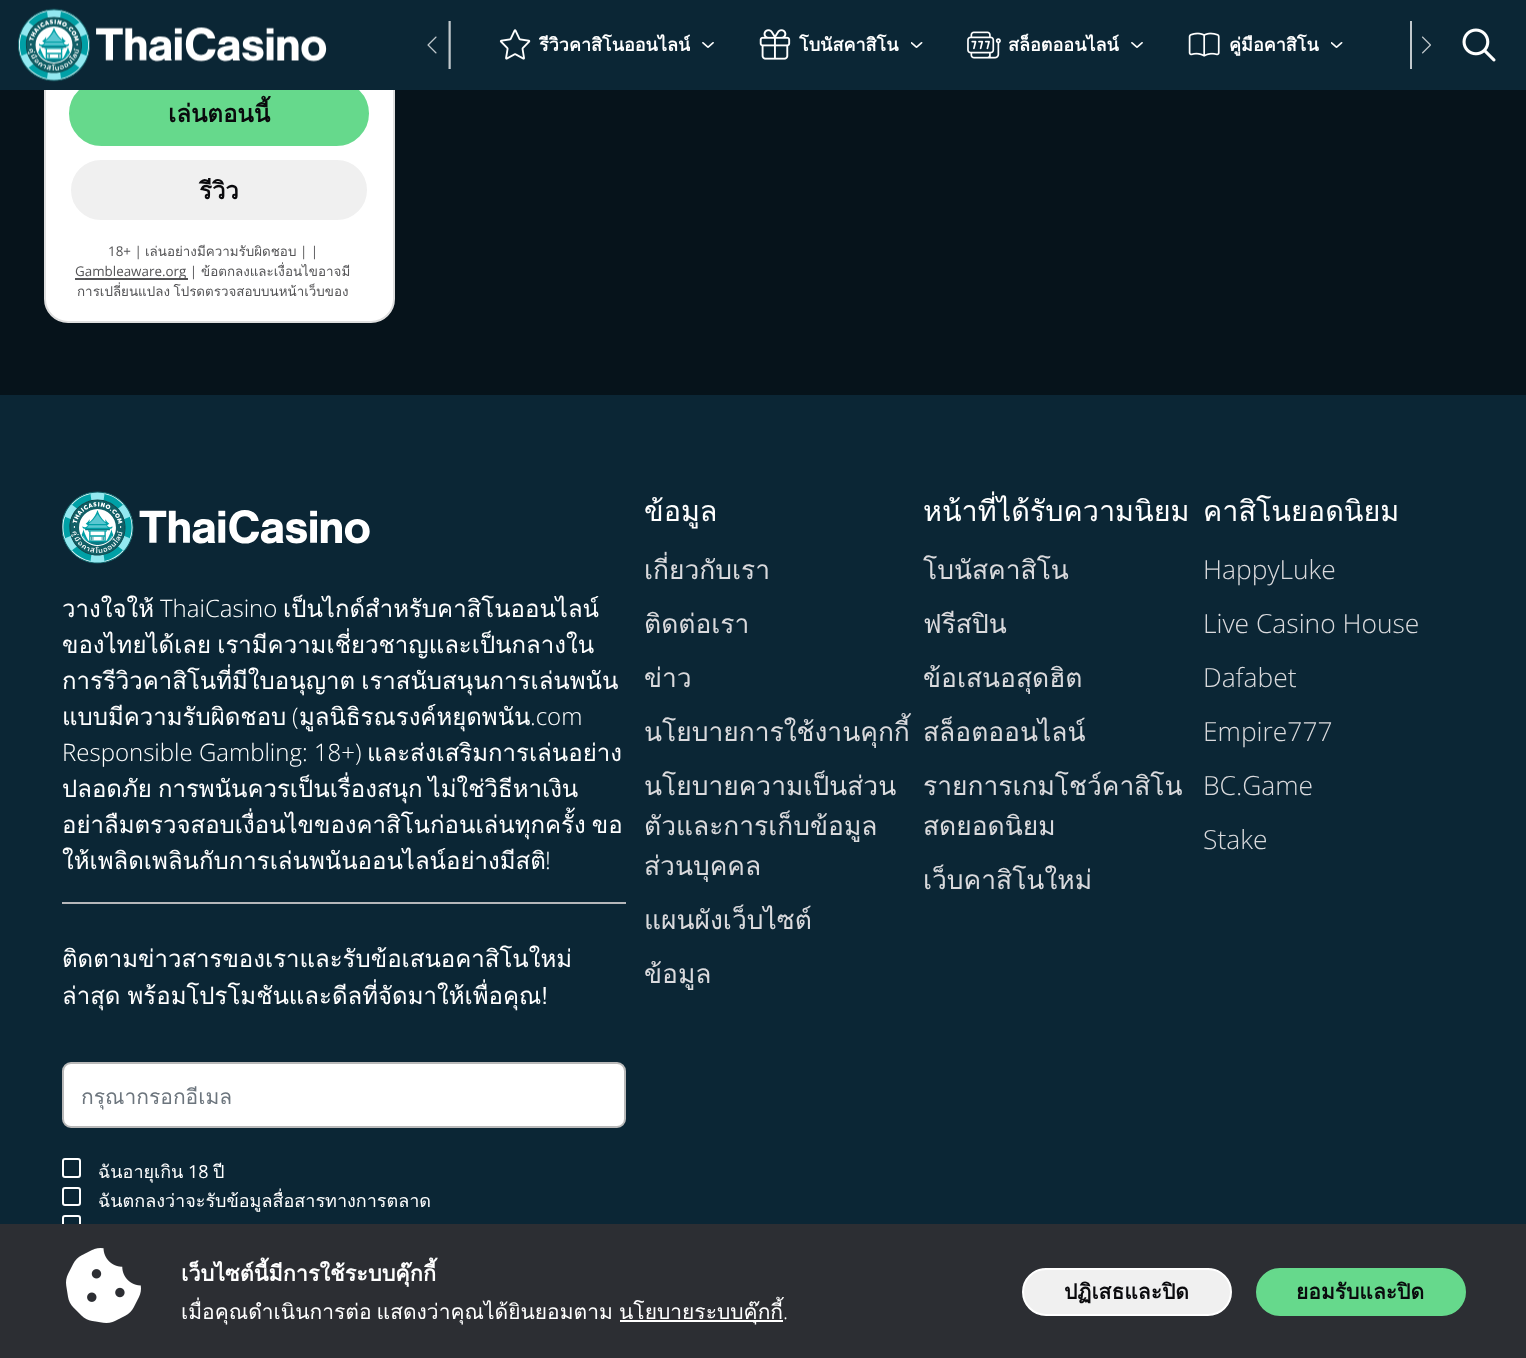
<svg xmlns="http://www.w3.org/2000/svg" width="1526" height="1358">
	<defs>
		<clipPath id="clip1"><rect x="539" y="32" width="151" height="27" /></clipPath>
		<clipPath id="clip2"><rect x="1229" y="32" width="90" height="27" /></clipPath>
	</defs>
	<rect width="100%" height="100%" fill="#06131B" />
	<rect x="45" y="-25" width="349" height="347" rx="23" fill="#FFFFFF" stroke="#DFDFDF" stroke-width="2" />
	<rect x="70" y="82" width="298" height="63" rx="31.5" fill="#66D98C" stroke="#66D98C" stroke-width="2" />
	<rect x="0" y="0" width="1526" height="90" fill="#0B2635" />
	<image x="18" y="8" width="309" height="74" href="assets/img1.png" />
	<image x="427" y="21" width="24" height="48" href="assets/img2.png" />
	<image x="499" y="29" width="32" height="31" href="assets/img3.png" />
	<g clip-path="url(#clip1)">
		<text x="539" y="51" font-family="Loma" font-size="18" font-weight="700" fill="#FFFFFF">รีวิวคาสิโนออนไลน์</text>
	</g>
	<image x="702" y="42" width="12" height="6" href="assets/img4.png" />
	<image x="759" y="29" width="32" height="31" href="assets/img5.png" />
	<text x="799" y="51" font-family="Loma" font-size="18" font-weight="700" fill="#FFFFFF">โบนัสคาสิโน</text>
	<image x="911" y="42" width="12" height="6" href="assets/img6.png" />
	<image x="967" y="31" width="34" height="28" href="assets/img7.png" />
	<text x="1008" y="51" font-family="Loma" font-size="18" font-weight="700" fill="#FFFFFF">สล็อตออนไลน์</text>
	<image x="1131" y="42" width="12" height="6" href="assets/img4.png" />
	<image x="1188" y="32" width="32" height="25" href="assets/img8.png" />
	<g clip-path="url(#clip2)">
		<text x="1229" y="51" font-family="Loma" font-size="18" font-weight="700" fill="#FFFFFF">คู่มือคาสิโน</text>
	</g>
	<image x="1331" y="42" width="12" height="6" href="assets/img6.png" />
	<image x="1410" y="21" width="21" height="48" href="assets/img9.png" />
	<image x="1462" y="28" width="34" height="34" href="assets/img10.png" />
	<text x="168" y="122" font-family="Loma" font-size="24" font-weight="700" fill="#0A0A0D">เล่นตอนนี้</text>
	<rect x="70" y="159" width="298" height="62" rx="31" fill="#F0F0F0" stroke="#FFFFFF" stroke-width="2" />
	<text x="199" y="199" font-family="Loma" font-size="24" font-weight="700" fill="#0A0A0D">รีวิว</text>
	<text x="108" y="256" font-family="Open Sans" font-size="13.4" fill="#545456">18+ |</text>
	<text x="145" y="256" font-family="Loma" font-size="13.4" fill="#545456">เล่นอย่างมีความรับผิดชอบ</text>
	<text x="300" y="256" font-family="Open Sans" font-size="13.4" fill="#545456">| |</text>
	<rect x="75" y="278" width="113" height="2" fill="#545456" />
	<text x="75" y="276" font-family="Open Sans" font-size="13.4" fill="#545456">Gambleaware.org |</text>
	<g font-family="Loma" font-size="13.4" fill="#545456">
		<text x="201" y="276">ข้อตกลงและเงื่อนไขอาจมี</text>
		<text x="77" y="296" word-spacing="-1">การเปลี่ยนแปลง โปรดตรวจสอบบนหน้าเว็บของ</text>
	</g>
	<rect x="0" y="395" width="1526" height="829" fill="#0B2635" />
	<image x="62" y="491" width="308" height="73" href="assets/img11.png" />
	<text x="62" y="617" font-family="Loma" font-size="24" fill="#FFFFFF">วางใจให้</text>
	<text x="160" y="617" font-family="Open Sans" font-size="24" font-weight="300" fill="#FFFFFF">ThaiCasino</text>
	<g font-family="Loma" font-size="24" fill="#FFFFFF">
		<text x="283" y="617">เป็นไกด์สำหรับคาสิโนออนไลน์</text>
		<text x="62" y="653" word-spacing="-2">ของไทยได้เลย เรามีความเชี่ยวชาญและเป็นกลางใน</text>
		<text x="62" y="689" word-spacing="-2">การรีวิวคาสิโนที่มีใบอนุญาต เราสนับสนุนการเล่นพนัน</text>
		<text x="62" y="725">แบบมีความรับผิดชอบ</text>
	</g>
	<text x="292" y="725" font-family="Open Sans" font-size="24" font-weight="300" fill="#FFFFFF">(</text>
	<text x="299" y="725" font-family="Loma" font-size="24" fill="#FFFFFF">มูลนิธิรณรงค์หยุดพนัน</text>
	<g font-family="Open Sans" font-size="24" font-weight="300" fill="#FFFFFF">
		<text x="530" y="725">.com</text>
		<text x="62" y="761">Responsible Gambling: 18+)</text>
	</g>
	<g font-family="Loma" font-size="24" fill="#FFFFFF">
		<text x="367" y="761">และส่งเสริมการเล่นอย่าง</text>
		<text x="62" y="797" word-spacing="-2">ปลอดภัย การพนันควรเป็นเรื่องสนุก ไม่ใช่วิธีหาเงิน</text>
		<text x="62" y="833" word-spacing="-2">อย่าลืมตรวจสอบเงื่อนไขของคาสิโนก่อนเล่นทุกครั้ง ขอ</text>
		<text x="62" y="869">ให้เพลิดเพลินกับการเล่นพนันออนไลน์อย่างมีสติ</text>
	</g>
	<text x="545" y="869" font-family="Open Sans" font-size="24" font-weight="300" fill="#FFFFFF">!</text>
	<rect x="62" y="902" width="564" height="2" fill="#B6B7BA" />
	<g font-family="Loma" font-size="24" fill="#FFFFFF">
		<text x="62" y="967">ติดตามข่าวสารของเราและรับข้อเสนอคาสิโนใหม่</text>
		<text x="62" y="1004" word-spacing="-1">ล่าสุด พร้อมโปรโมชันและดีลที่จัดมาให้เพื่อคุณ!</text>
	</g>
	<rect x="63" y="1063" width="562" height="64" rx="8" fill="#FFFFFF" stroke="#B9B9B9" stroke-width="2" />
	<text x="81" y="1104" font-family="Loma" font-size="21" fill="#6C757D">กรุณากรอกอีเมล</text>
	<rect x="63" y="1159" width="17" height="18" rx="2" fill="none" stroke="#FFFFFF" stroke-width="2" />
	<text x="98" y="1178" font-family="Loma" font-size="18" fill="#FFFFFF">ฉันอายุเกิน</text>
	<text x="188" y="1178" font-family="Open Sans" font-size="18" fill="#FFFFFF">18</text>
	<text x="213" y="1178" font-family="Loma" font-size="18" fill="#FFFFFF">ปี</text>
	<rect x="63" y="1188" width="17" height="17" rx="2" fill="none" stroke="#FFFFFF" stroke-width="2" />
	<text x="98" y="1207" font-family="Loma" font-size="18" fill="#FFFFFF">ฉันตกลงว่าจะรับข้อมูลสื่อสารทางการตลาด</text>
	<rect x="63" y="1216" width="17" height="18" rx="2" fill="none" stroke="#FFFFFF" stroke-width="2" />
	<text x="644" y="521" font-family="Loma" font-size="28.75" fill="#FFFFFF">ข้อมูล</text>
	<g font-family="Loma" font-size="26.4" fill="#DADADD">
		<text x="644" y="579">เกี่ยวกับเรา</text>
		<text x="644" y="633">ติดต่อเรา</text>
		<text x="644" y="687">ข่าว</text>
		<text x="644" y="741">นโยบายการใช้งานคุกกี้</text>
		<text x="644" y="795">นโยบายความเป็นส่วน</text>
		<text x="644" y="835">ตัวและการเก็บข้อมูล</text>
		<text x="644" y="875">ส่วนบุคคล</text>
		<text x="644" y="929">แผนผังเว็บไซต์</text>
		<text x="644" y="983">ข้อมูล</text>
	</g>
	<text x="923" y="521" font-family="Loma" font-size="28.75" fill="#FFFFFF">หน้าที่ได้รับความนิยม</text>
	<g font-family="Loma" font-size="26.4" fill="#DADADD">
		<text x="923" y="579">โบนัสคาสิโน</text>
		<text x="923" y="633">ฟรีสปิน</text>
		<text x="923" y="687">ข้อเสนอสุดฮิต</text>
		<text x="923" y="741">สล็อตออนไลน์</text>
		<text x="923" y="795">รายการเกมโชว์คาสิโน</text>
		<text x="923" y="835">สดยอดนิยม</text>
		<text x="923" y="889">เว็บคาสิโนใหม่</text>
	</g>
	<text x="1203" y="521" font-family="Loma" font-size="28.75" fill="#FFFFFF">คาสิโนยอดนิยม</text>
	<g font-family="Open Sans" font-size="26.4" font-weight="300" fill="#DADADD">
		<text x="1203" y="579">HappyLuke</text>
		<text x="1203" y="633">Live Casino House</text>
		<text x="1203" y="687">Dafabet</text>
		<text x="1203" y="741">Empire777</text>
		<text x="1203" y="795">BC.Game</text>
		<text x="1203" y="849">Stake</text>
	</g>
	<rect x="0" y="1224" width="1526" height="134" fill="#2C2E33" />
	<image x="66" y="1248" width="75" height="75" href="assets/img12.png" />
	<text x="181" y="1281" font-family="Loma" font-size="21.6" font-weight="700" fill="#FFFFFF">เว็บไซต์นี้มีการใช้ระบบคุ๊กกี้</text>
	<text x="181" y="1319" word-spacing="-2" font-family="Loma" font-size="21" fill="#FFFFFF">เมื่อคุณดำเนินการต่อ แสดงว่าคุณได้ยินยอมตาม</text>
	<rect x="620" y="1320" width="163" height="2" fill="#FFFFFF" />
	<text x="619" y="1319" font-family="Loma" font-size="21" fill="#FFFFFF">นโยบายระบบคุ๊กกี้</text>
	<text x="783" y="1319" font-family="Open Sans" font-size="21" font-weight="300" fill="#FFFFFF">.</text>
	<rect x="1023" y="1269" width="208" height="46" rx="23" fill="#F0F0F0" stroke="#FFFFFF" stroke-width="2" />
	<text x="1064" y="1299" font-family="Loma" font-size="21" font-weight="700" fill="#0A0A0D">ปฏิเสธและปิด</text>
	<rect x="1257" y="1269" width="208" height="46" rx="23" fill="#66D98C" stroke="#66D98C" stroke-width="2" />
	<text x="1296" y="1299" font-family="Loma" font-size="21" font-weight="700" fill="#0A0A0D">ยอมรับและปิด</text>
</svg>
